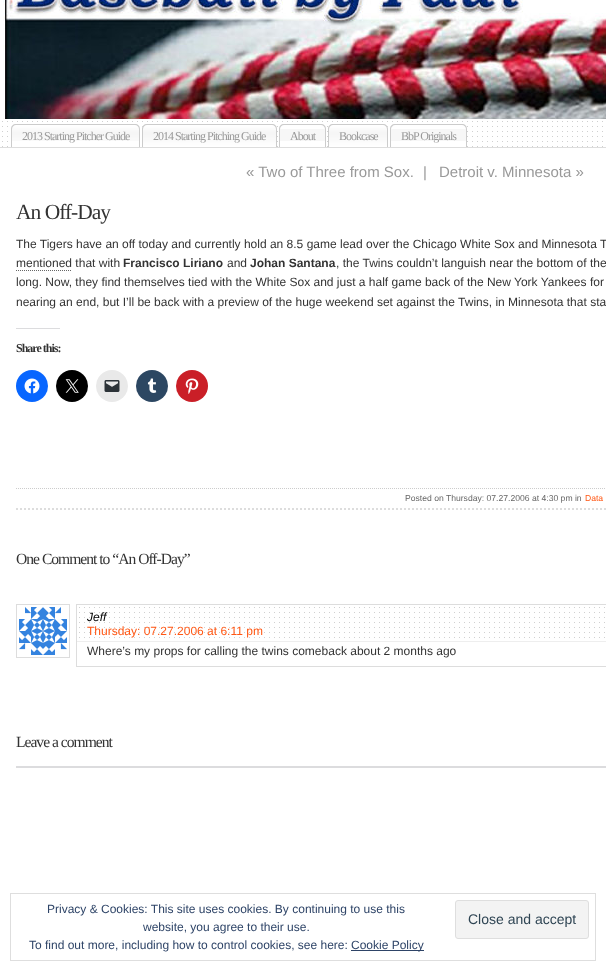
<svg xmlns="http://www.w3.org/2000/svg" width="606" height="971">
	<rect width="100%" height="100%" fill="#FFFFFF" />
	<image x="3" y="0" width="603" height="119" href="assets/img1.png" />
	<image x="2" y="121" width="601" height="26" href="assets/img2.png" />
	<rect x="0" y="147" width="606" height="1" fill="#DDDDDD" />
	<path d="M16 125H135C137 125 139 127 139 129V147H12V129C12 127 14 125 16 125Z" fill="#FFFFFF" />
	<image x="11" y="126" width="129" height="15" href="assets/img3.png" />
	<path d="M16 124H135C138 124 140 126 140 129V147H11V129C11 126 13 124 16 124ZM16 125H135C137 125 139 127 139 129V147H12V129C12 127 14 125 16 125Z" fill="#CCCCCC" fill-rule="evenodd" />
	<text x="22" y="140" font-family="Liberation Serif" font-size="12" letter-spacing="-1" fill="#999999">2013 Starting Pitcher Guide</text>
	<path d="M147 125H272C274 125 276 127 276 129V147H143V129C143 127 145 125 147 125Z" fill="#FFFFFF" />
	<image x="142" y="126" width="135" height="21" href="assets/img4.png" />
	<path d="M147 124H272C275 124 277 126 277 129V147H142V129C142 126 144 124 147 124ZM147 125H272C274 125 276 127 276 129V147H143V129C143 127 145 125 147 125Z" fill="#CCCCCC" fill-rule="evenodd" />
	<text x="153" y="140" font-family="Liberation Serif" font-size="12" letter-spacing="-1" fill="#999999">2014 Starting Pitching Guide</text>
	<path d="M284 125H321C323 125 325 127 325 129V147H280V129C280 127 282 125 284 125Z" fill="#FFFFFF" />
	<rect x="280" y="129" width="45" height="12" fill="#F7F7F7" />
	<path d="M284 124H321C324 124 326 126 326 129V147H279V129C279 126 281 124 284 124ZM284 125H321C323 125 325 127 325 129V147H280V129C280 127 282 125 284 125Z" fill="#CCCCCC" fill-rule="evenodd" />
	<text x="290" y="140" font-family="Liberation Serif" font-size="12" letter-spacing="-1" fill="#999999">About</text>
	<path d="M333 125H383C385 125 387 127 387 129V147H329V129C329 127 331 125 333 125Z" fill="#FFFFFF" />
	<image x="328" y="126" width="60" height="21" href="assets/img5.png" />
	<path d="M333 124H383C386 124 388 126 388 129V147H328V129C328 126 330 124 333 124ZM333 125H383C385 125 387 127 387 129V147H329V129C329 127 331 125 333 125Z" fill="#CCCCCC" fill-rule="evenodd" />
	<text x="339" y="140" font-family="Liberation Serif" font-size="12" letter-spacing="-1" fill="#999999">Bookcase</text>
	<path d="M395 125H462C464 125 466 127 466 129V147H391V129C391 127 393 125 395 125Z" fill="#FFFFFF" />
	<rect x="391" y="129" width="75" height="12" fill="#F7F7F7" />
	<path d="M395 124H462C465 124 467 126 467 129V147H390V129C390 126 392 124 395 124ZM395 125H462C464 125 466 127 466 129V147H391V129C391 127 393 125 395 125Z" fill="#CCCCCC" fill-rule="evenodd" />
	<text x="401" y="140" font-family="Liberation Serif" font-size="12" letter-spacing="-1" fill="#999999">BbP Originals</text>
	<g font-family="Liberation Sans" font-size="15" fill="#999999">
		<text x="246" y="177">« Two of Three from Sox.</text>
		<text x="423" y="177">|</text>
		<text x="439" y="177">Detroit v. Minnesota »</text>
	</g>
	<text x="16" y="219" font-family="Liberation Serif" font-size="21.5" letter-spacing="-1" fill="#333333">An Off-Day</text>
	<g font-family="Liberation Sans" font-size="12" fill="#333333">
		<text x="16" y="248">The Tigers have an off today and currently hold an 8.5 game lead over the Chicago White Sox and Minnesota T</text>
		<text x="16" y="267">mentioned that with</text>
	</g>
	<path d="M16 270.5H72" fill="none" stroke="#666666" stroke-dasharray="1 1" />
	<text x="123" y="267" font-family="Liberation Sans" font-size="12" font-weight="700" fill="#333333">Francisco Liriano</text>
	<text x="227" y="267" font-family="Liberation Sans" font-size="12" fill="#333333">and</text>
	<text x="250" y="267" font-family="Liberation Sans" font-size="12" font-weight="700" fill="#333333">Johan Santana</text>
	<g font-family="Liberation Sans" font-size="12" fill="#333333">
		<text x="336" y="267">, the Twins couldn’t languish near the bottom of the</text>
		<text x="16" y="286">long. Now, they find themselves tied with the White Sox and just a half game back of the New York Yankees for</text>
		<text x="16" y="306">nearing an end, but I’ll be back with a preview of the huge weekend set against the Twins, in Minnesota that sta</text>
	</g>
	<rect x="16" y="328" width="44" height="1" fill="#DCDCDE" />
	<text x="16" y="352" font-family="Liberation Serif" font-size="12" font-weight="700" letter-spacing="-1" fill="#333333">Share this:</text>
	<circle cx="32" cy="386" r="16" fill="#0866FF" />
	<image x="24" y="378" width="16" height="16" href="assets/img6.png" />
	<circle cx="72" cy="386" r="16" fill="#000000" />
	<image x="65" y="379" width="14" height="14" href="assets/img7.png" />
	<circle cx="112" cy="386" r="16" fill="#E9E9E9" />
	<image x="104" y="380" width="16" height="12" href="assets/img8.png" />
	<circle cx="152" cy="386" r="16" fill="#2C4762" />
	<image x="147" y="378" width="10" height="15" href="assets/img9.png" />
	<circle cx="192" cy="386" r="16" fill="#CA1F27" />
	<image x="185" y="378" width="14" height="16" href="assets/img10.png" />
	<path d="M16 488.5H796" fill="none" stroke="#CCCCCC" stroke-dasharray="1 1" />
	<path d="M16 509H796" fill="none" stroke="#DDDDDD" stroke-width="2" stroke-dasharray="2 2" />
	<text x="405" y="501" font-family="Liberation Sans" font-size="8.6" fill="#666666">Posted on Thursday: 07.27.2006 at 4:30 pm in</text>
	<text x="585" y="501" font-family="Liberation Sans" font-size="8.6" fill="#FF5714">Data</text>
	<text x="16" y="564" font-family="Liberation Serif" font-size="15.6" letter-spacing="-1" fill="#333333">One Comment to “An Off-Day”</text>
	<rect x="16.5" y="604.5" width="53" height="53" fill="none" stroke="#DDDDDD" />
	<image x="19" y="607" width="48" height="48" href="assets/img11.png" />
	<rect x="76.5" y="604.5" width="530" height="62" fill="none" stroke="#DDDDDD" />
	<image x="79" y="607" width="526" height="31" href="assets/img12.png" />
	<rect x="77" y="641" width="529" height="1" fill="#EEEEEE" />
	<text x="87" y="621" font-family="Liberation Sans" font-size="12" font-style="italic" fill="#000000">Jeff</text>
	<text x="87" y="635" font-family="Liberation Sans" font-size="12" fill="#FF5714">Thursday: 07.27.2006 at 6:11 pm</text>
	<text x="87" y="655" font-family="Liberation Sans" font-size="12" fill="#333333">Where’s my props for calling the twins comeback about 2 months ago</text>
	<text x="16" y="747" font-family="Liberation Serif" font-size="15.6" letter-spacing="-1" fill="#333333">Leave a comment</text>
	<rect x="16" y="766" width="590" height="2" fill="#DCDCDE" />
	<rect x="10.5" y="893.5" width="585" height="67" fill="none" stroke="#DEDEDE" />
	<g font-family="Liberation Sans" font-size="12" fill="#2E4467">
		<text x="47" y="913">Privacy &amp; Cookies: This site uses cookies. By continuing to use this</text>
		<text x="143" y="931">website, you agree to their use.</text>
	</g>
	<rect x="455.5" y="900.5" width="133" height="38" rx="2.5" fill="#F3F3F3" stroke="#DEDEDE" />
	<text x="468" y="924" font-family="Liberation Sans" font-size="14" fill="#2E4453">Close and accept</text>
	<text x="29" y="949" font-family="Liberation Sans" font-size="12" fill="#2E4467">To find out more, including how to control cookies, see here:</text>
	<rect x="351" y="950" width="73" height="1" fill="#2E4467" />
	<text x="351" y="949" font-family="Liberation Sans" font-size="12" fill="#2E4467">Cookie Policy</text>
</svg>
